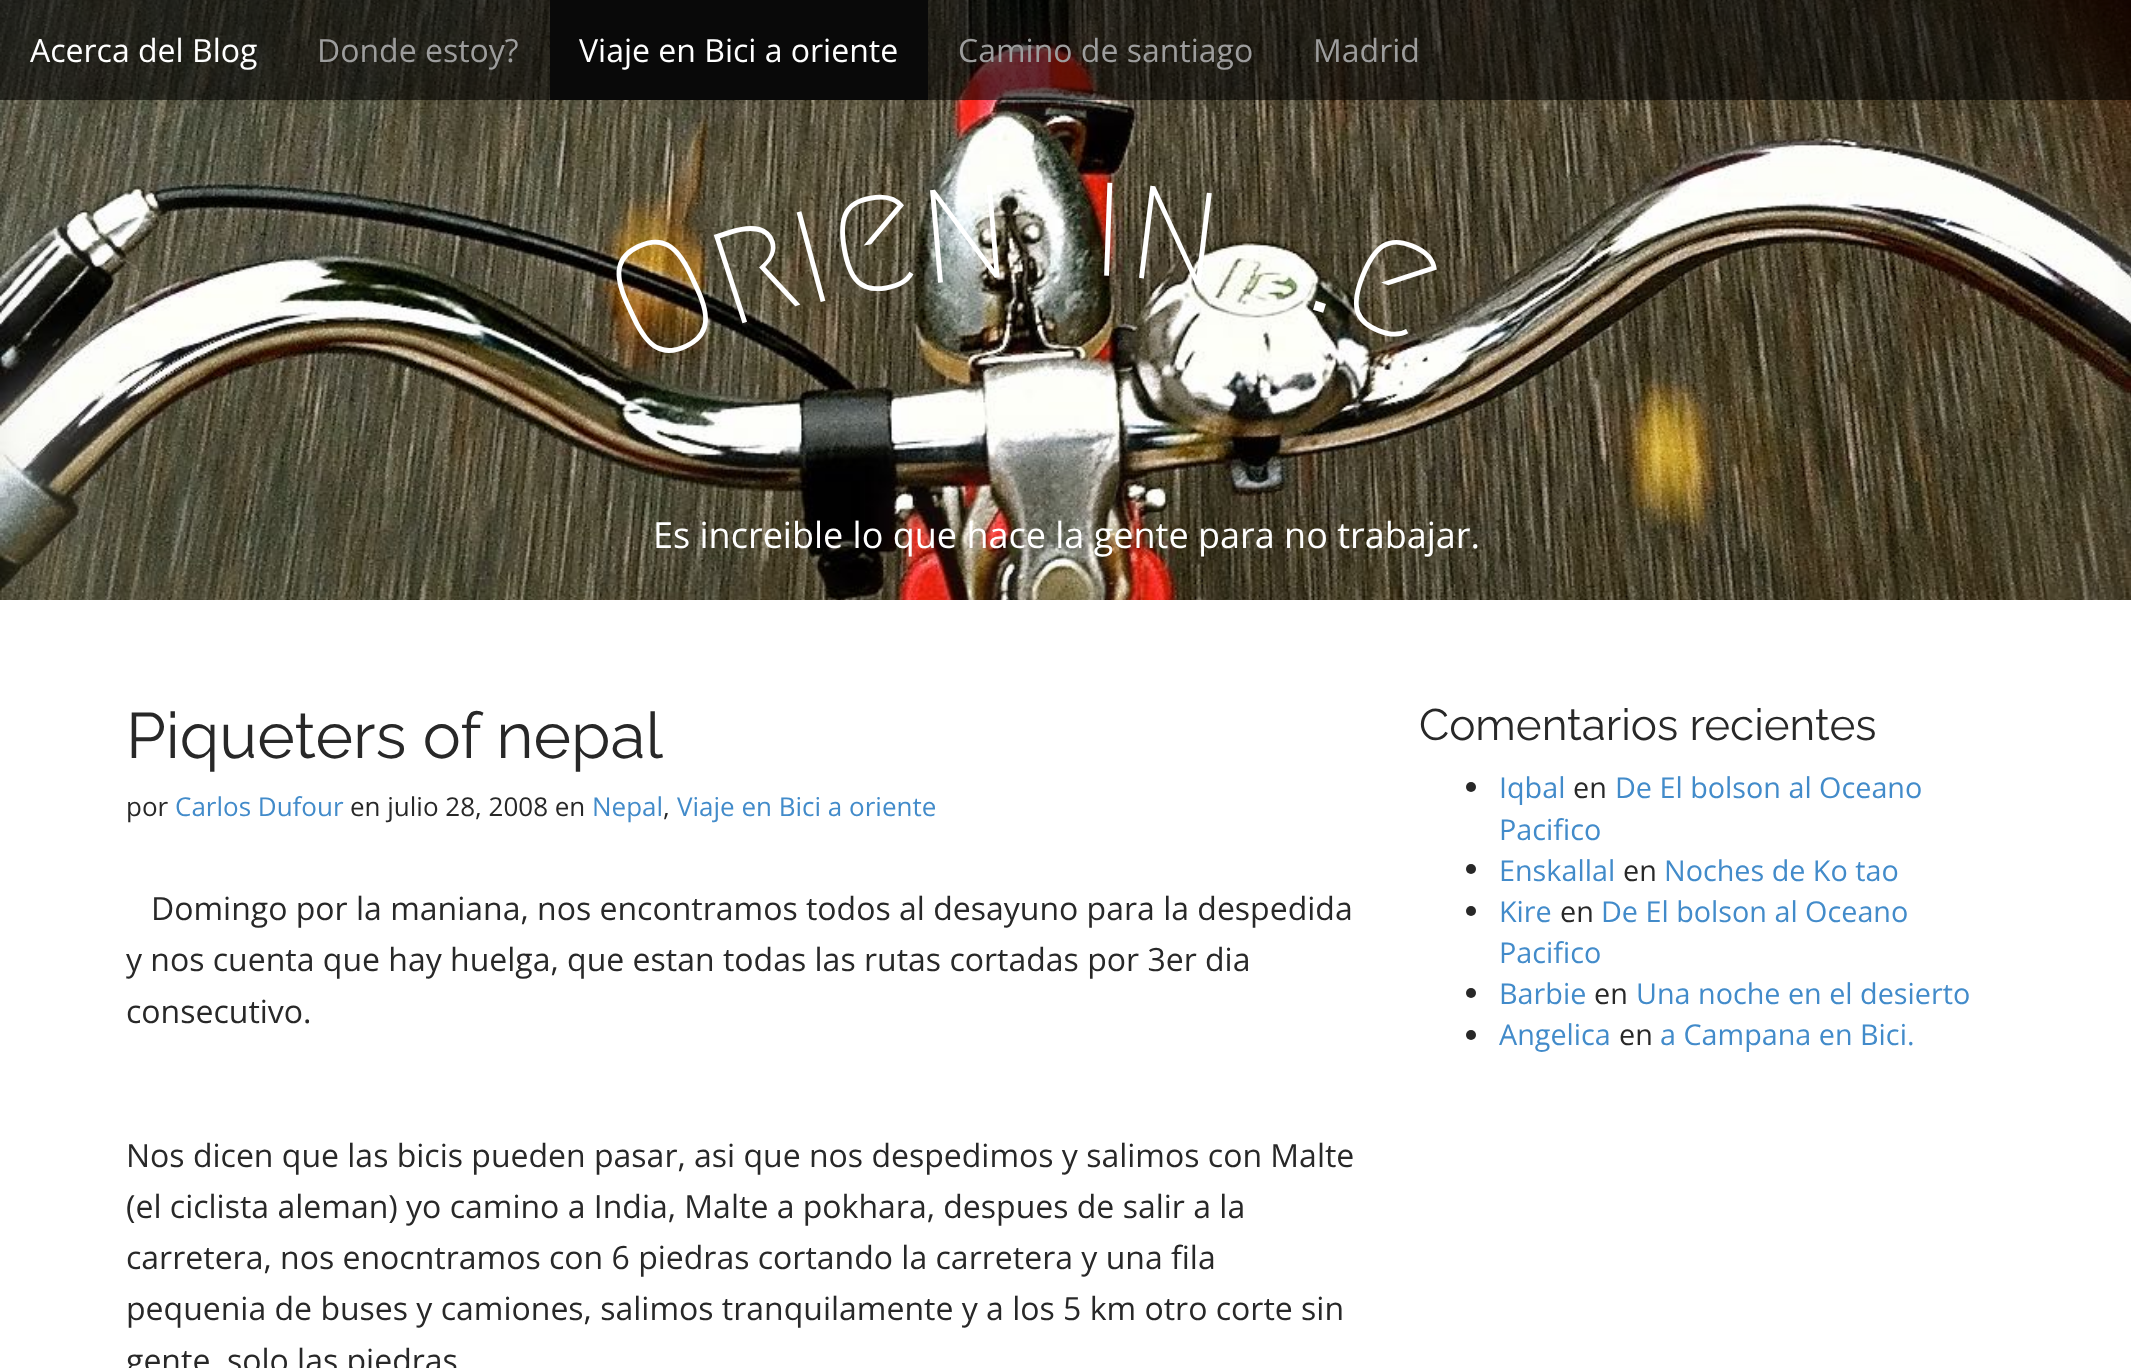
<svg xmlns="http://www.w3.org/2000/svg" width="2131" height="1368">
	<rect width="100%" height="100%" fill="#FFFFFF" />
	<image x="0" y="0" width="2131" height="600" href="assets/img1.png" />
	<rect x="0" y="0" width="2131" height="100" fill="#000000" fill-opacity="0.6" />
	<text x="30" y="62" font-family="Open Sans" font-size="32" fill="#FFFFFF">Acerca del Blog</text>
	<text x="317" y="62" font-family="Open Sans" font-size="32" fill="#9D9D9D">Donde estoy?</text>
	<rect x="550" y="0" width="378" height="100" fill="#090909" />
	<text x="579" y="62" font-family="Open Sans" font-size="32" fill="#FFFFFF">Viaje en Bici a oriente</text>
	<g font-family="Open Sans" font-size="32" fill="#9D9D9D">
		<text x="958" y="62">Camino de santiago</text>
		<text x="1313" y="62">Madrid</text>
	</g>
	<g font-family="Megrim" font-size="160" font-weight="500" fill="#FFFFFF">
		<text x="641" y="368" transform="rotate(-25 641 368)">O</text>
		<text x="728" y="328" transform="rotate(-18 728 328)">r</text>
		<text x="806" y="306" transform="rotate(-15 806 306)">i</text>
		<text x="839" y="297" transform="rotate(-10 839 297)">e</text>
		<text x="923" y="284" transform="rotate(-5 923 284)">n</text>
		<text x="1089" y="275" transform="rotate(2 1089 275)">i</text>
		<text x="1124" y="276" transform="rotate(7 1124 276)">n</text>
		<text x="1301" y="306" transform="rotate(17 1301 306)">.</text>
		<text x="1333" y="313" transform="rotate(22 1333 313)">e</text>
	</g>
	<text x="653" y="548" font-family="Open Sans" font-size="36" fill="#FFFFFF">Es increible lo que hace la gente para no trabajar.</text>
	<text x="126" y="758" font-family="Raleway" font-size="64" font-weight="100" fill="#282828">Piqueters of nepal</text>
	<text x="126" y="816" font-family="Open Sans" font-size="26" fill="#282828">por</text>
	<text x="175" y="816" font-family="Open Sans" font-size="26" fill="#428BCA">Carlos Dufour</text>
	<text x="350" y="816" font-family="Open Sans" font-size="26" fill="#282828">en julio 28, 2008 en</text>
	<text x="592" y="816" font-family="Open Sans" font-size="26" fill="#428BCA">Nepal</text>
	<text x="663" y="816" font-family="Open Sans" font-size="26" fill="#282828">,</text>
	<text x="677" y="816" font-family="Open Sans" font-size="26" fill="#428BCA">Viaje en Bici a oriente</text>
	<g font-family="Open Sans" font-size="32" fill="#282828">
		<text x="151" y="920">Domingo por la maniana, nos encontramos todos al desayuno para la despedida</text>
		<text x="126" y="971">y nos cuenta que hay huelga, que estan todas las rutas cortadas por 3er dia</text>
		<text x="126" y="1023">consecutivo.</text>
		<text x="126" y="1167">Nos dicen que las bicis pueden pasar, asi que nos despedimos y salimos con Malte</text>
		<text x="126" y="1218">(el ciclista aleman) yo camino a India, Malte a pokhara, despues de salir a la</text>
		<text x="126" y="1269">carretera, nos enocntramos con 6 piedras cortando la carretera y una fila</text>
		<text x="126" y="1320">pequenia de buses y camiones, salimos tranquilamente y a los 5 km otro corte sin</text>
		<text x="126" y="1372">gente, solo las piedras</text>
	</g>
	<text x="1419" y="740" font-family="Raleway" font-size="44" font-weight="100" fill="#282828">Comentarios recientes</text>
	<circle cx="1471" cy="787" r="5" fill="#282828" />
	<text x="1499" y="798" font-family="Open Sans" font-size="28.75" fill="#428BCA">Iqbal</text>
	<text x="1573" y="798" font-family="Open Sans" font-size="28.75" fill="#282828">en</text>
	<g font-family="Open Sans" font-size="28.75" fill="#428BCA">
		<text x="1615" y="798">De El bolson al Oceano</text>
		<text x="1499" y="840">Pacifico</text>
	</g>
	<circle cx="1471" cy="869" r="5" fill="#282828" />
	<text x="1499" y="881" font-family="Open Sans" font-size="28.75" fill="#428BCA">Enskallal</text>
	<text x="1623" y="881" font-family="Open Sans" font-size="28.75" fill="#282828">en</text>
	<text x="1664" y="881" font-family="Open Sans" font-size="28.75" fill="#428BCA">Noches de Ko tao</text>
	<circle cx="1471" cy="911" r="5" fill="#282828" />
	<text x="1499" y="922" font-family="Open Sans" font-size="28.75" fill="#428BCA">Kire</text>
	<text x="1560" y="922" font-family="Open Sans" font-size="28.75" fill="#282828">en</text>
	<g font-family="Open Sans" font-size="28.75" fill="#428BCA">
		<text x="1601" y="922">De El bolson al Oceano</text>
		<text x="1499" y="963">Pacifico</text>
	</g>
	<circle cx="1471" cy="993" r="5" fill="#282828" />
	<text x="1499" y="1004" font-family="Open Sans" font-size="28.75" fill="#428BCA">Barbie</text>
	<text x="1594" y="1004" font-family="Open Sans" font-size="28.75" fill="#282828">en</text>
	<text x="1636" y="1004" font-family="Open Sans" font-size="28.75" fill="#428BCA">Una noche en el desierto</text>
	<circle cx="1471" cy="1035" r="5" fill="#282828" />
	<text x="1499" y="1045" font-family="Open Sans" font-size="28.75" fill="#428BCA">Angelica</text>
	<text x="1619" y="1045" font-family="Open Sans" font-size="28.75" fill="#282828">en</text>
	<text x="1660" y="1045" font-family="Open Sans" font-size="28.75" fill="#428BCA">a Campana en Bici.</text>
</svg>
